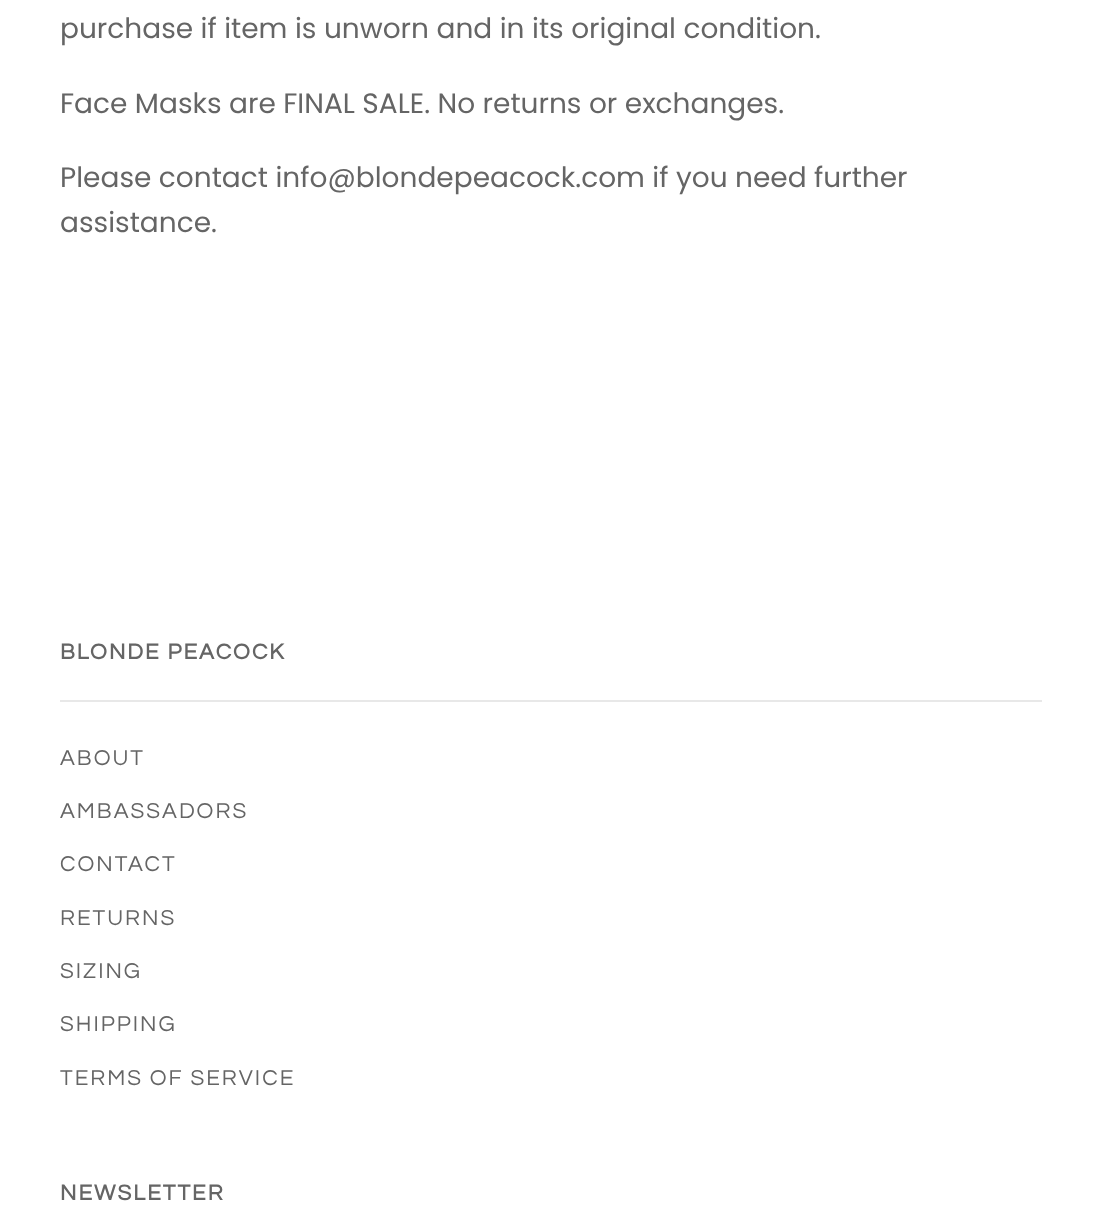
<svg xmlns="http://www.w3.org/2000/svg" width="1102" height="1228">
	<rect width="100%" height="100%" fill="#FFFFFF" />
	<g font-family="Poppins" font-size="28" fill="#656565">
		<text x="60" y="38">purchase if item is unworn and in its original condition.</text>
		<text x="60" y="113">Face Masks are FINAL SALE. No returns or exchanges.</text>
		<text x="60" y="187">Please contact info@blondepeacock.com if you need further</text>
		<text x="60" y="232">assistance.</text>
	</g>
	<text x="60" y="659" font-family="Questrial" font-size="22.4" font-weight="700" letter-spacing="2" fill="#656565">BLONDE PEACOCK</text>
	<rect x="60" y="700" width="982" height="2" fill="#E8E8E8" />
	<g font-family="Questrial" font-size="22.4" letter-spacing="2" fill="#656565">
		<text x="60" y="765">ABOUT</text>
		<text x="60" y="818">AMBASSADORS</text>
		<text x="60" y="871">CONTACT</text>
		<text x="60" y="925">RETURNS</text>
		<text x="60" y="978">SIZING</text>
		<text x="60" y="1031">SHIPPING</text>
		<text x="60" y="1085">TERMS OF SERVICE</text>
	</g>
	<text x="60" y="1200" font-family="Questrial" font-size="22.4" font-weight="700" letter-spacing="2" fill="#656565">NEWSLETTER</text>
</svg>
